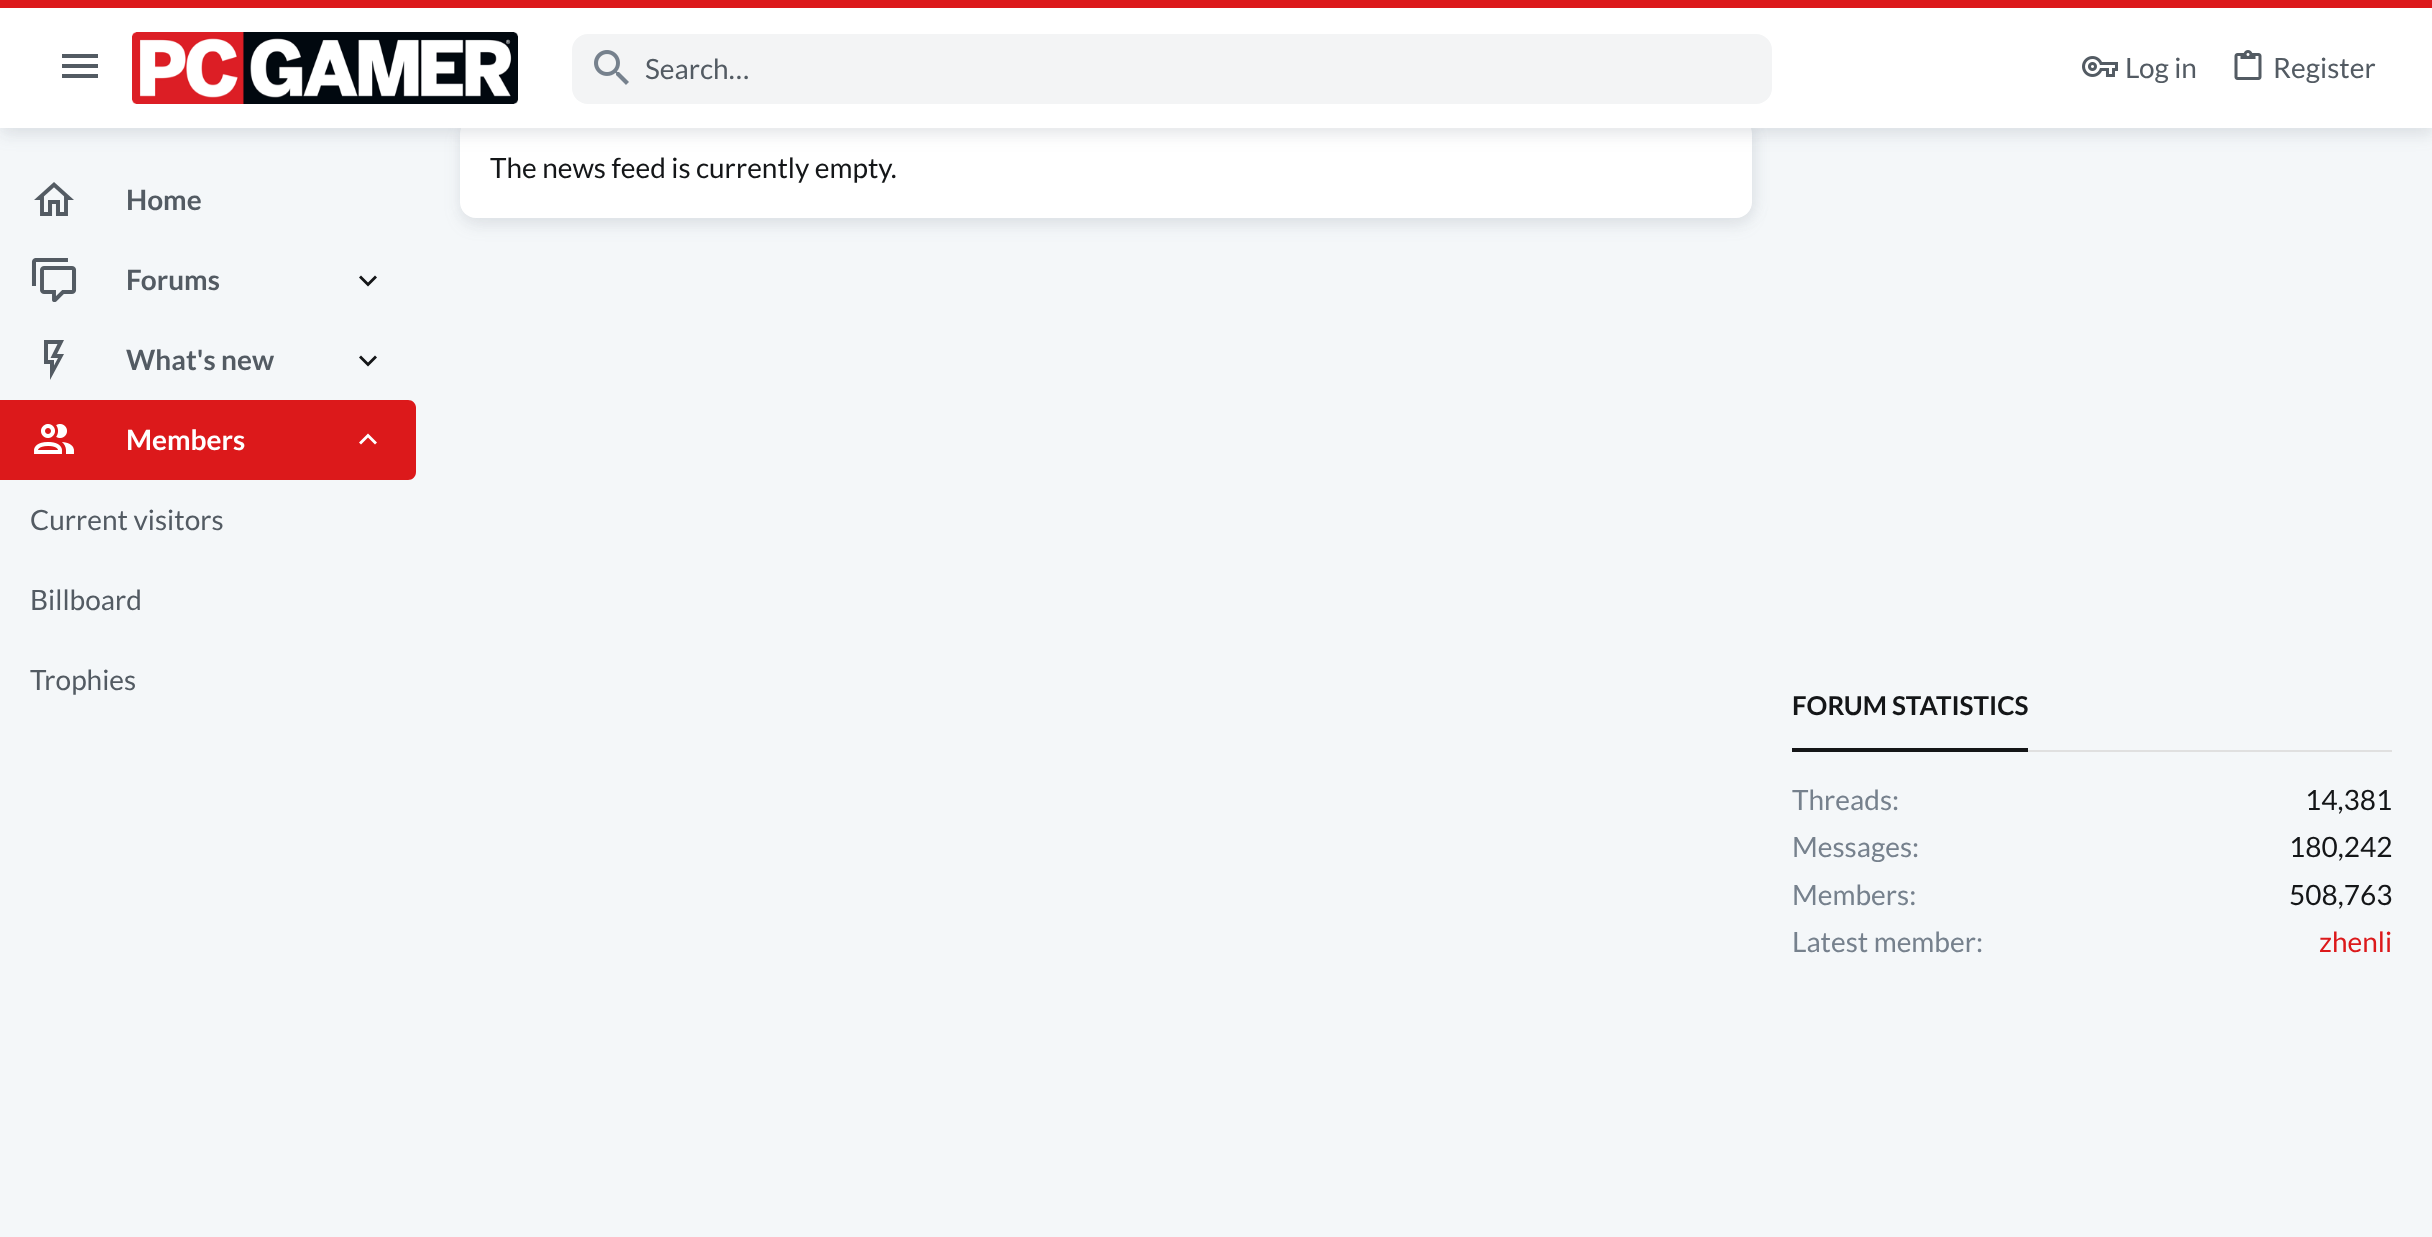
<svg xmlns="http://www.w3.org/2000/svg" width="2432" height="1237">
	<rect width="100%" height="100%" fill="#F4F7F9" />
	<rect x="464" y="118" width="1292" height="100" rx="16" fill="#6B7780" fill-opacity="0.08" filter="blur(8px)" />
	<rect x="460" y="126" width="1292" height="100" rx="16" fill="#6B7780" fill-opacity="0.12" filter="blur(8px)" />
	<rect x="460" y="118" width="1292" height="100" rx="16" fill="#FFFFFF" />
	<rect x="4" y="0" width="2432" height="128" fill="#6B7780" fill-opacity="0.08" filter="blur(8px)" />
	<rect x="0" y="8" width="2432" height="128" fill="#6B7780" fill-opacity="0.12" filter="blur(8px)" />
	<rect x="0" y="8" width="2432" height="120" fill="#FFFFFF" />
	<rect x="0" y="0" width="2432" height="8" fill="#DC191B" />
	<path d="M62 54H98V58H62ZM62 64H98V68H62ZM62 74H98V78H62Z" fill="#535B63" />
	<image x="132" y="32" width="386" height="72" href="assets/img1.png" />
	<rect x="572" y="34" width="1200" height="70" rx="16" fill="#F3F4F5" />
	<image x="594" y="50" width="35" height="35" href="assets/img2.png" />
	<text x="645" y="79" font-family="Lato" font-size="28" fill="#535B63">Search…</text>
	<image x="2082" y="56" width="36" height="21" href="assets/img3.png" />
	<text x="2125" y="78" font-family="Lato" font-size="28" fill="#535B63">Log in</text>
	<image x="2234" y="50" width="28" height="30" href="assets/img4.png" />
	<text x="2273" y="78" font-family="Lato" font-size="28" fill="#535B63">Register</text>
	<image x="34" y="182" width="40" height="34" href="assets/img5.png" />
	<text x="126" y="210" font-family="Lato" font-size="28" font-weight="700" fill="#535B63">Home</text>
	<image x="31" y="258" width="46" height="44" href="assets/img6.png" />
	<text x="126" y="290" font-family="Lato" font-size="28" font-weight="700" fill="#535B63">Forums</text>
	<path d="M361 275.5L368 282.5L375 275.5L377 277.5L368 286.5L359 277.5Z" fill="#141618" />
	<path d="M44 340H64L57 354H64L50 380V364H44ZM48 344V360H54V365.5L58 358H50.5L57.5 344Z" fill="#535B63" />
	<text x="126" y="370" font-family="Lato" font-size="28" font-weight="700" fill="#535B63">What's new</text>
	<path d="M361 355.5L368 362.5L375 355.5L377 357.5L368 366.5L359 357.5Z" fill="#141618" />
	<path d="M0 400H408C412.5 400 416 403.5 416 408V472C416 476.5 412.5 480 408 480H0Z" fill="#DC191B" />
	<image x="34" y="424" width="40" height="30" href="assets/img7.png" />
	<text x="126" y="450" font-family="Lato" font-size="28" font-weight="700" fill="#FFFFFF">Members</text>
	<path d="M375 444.5L368 437.5L361 444.5L359 442.5L368 433.5L377 442.5Z" fill="#FFFFFF" />
	<g font-family="Lato" font-size="28" fill="#535B63">
		<text x="30" y="530">Current visitors</text>
		<text x="30" y="610">Billboard</text>
		<text x="30" y="690">Trophies</text>
	</g>
	<text x="490" y="178" font-family="Lato" font-size="28" fill="#141618">The news feed is currently empty.</text>
	<rect x="1792" y="748" width="236" height="4" fill="#141618" />
	<text x="1792" y="715" font-family="Lato" font-size="26" font-weight="700" fill="#141618">FORUM STATISTICS</text>
	<rect x="2028" y="750" width="364" height="2" fill="#E0E0E0" />
	<text x="1792" y="810" font-family="Lato" font-size="28" fill="#76818D">Threads:</text>
	<text x="2305" y="810" font-family="Lato" font-size="28" fill="#141618">14,381</text>
	<text x="1792" y="857" font-family="Lato" font-size="28" fill="#76818D">Messages:</text>
	<text x="2289" y="857" font-family="Lato" font-size="28" fill="#141618">180,242</text>
	<text x="1792" y="905" font-family="Lato" font-size="28" fill="#76818D">Members:</text>
	<text x="2289" y="905" font-family="Lato" font-size="28" fill="#141618">508,763</text>
	<text x="1792" y="952" font-family="Lato" font-size="28" fill="#76818D">Latest member:</text>
	<text x="2319" y="952" font-family="Lato" font-size="28" fill="#DC191B">zhenli</text>
</svg>
